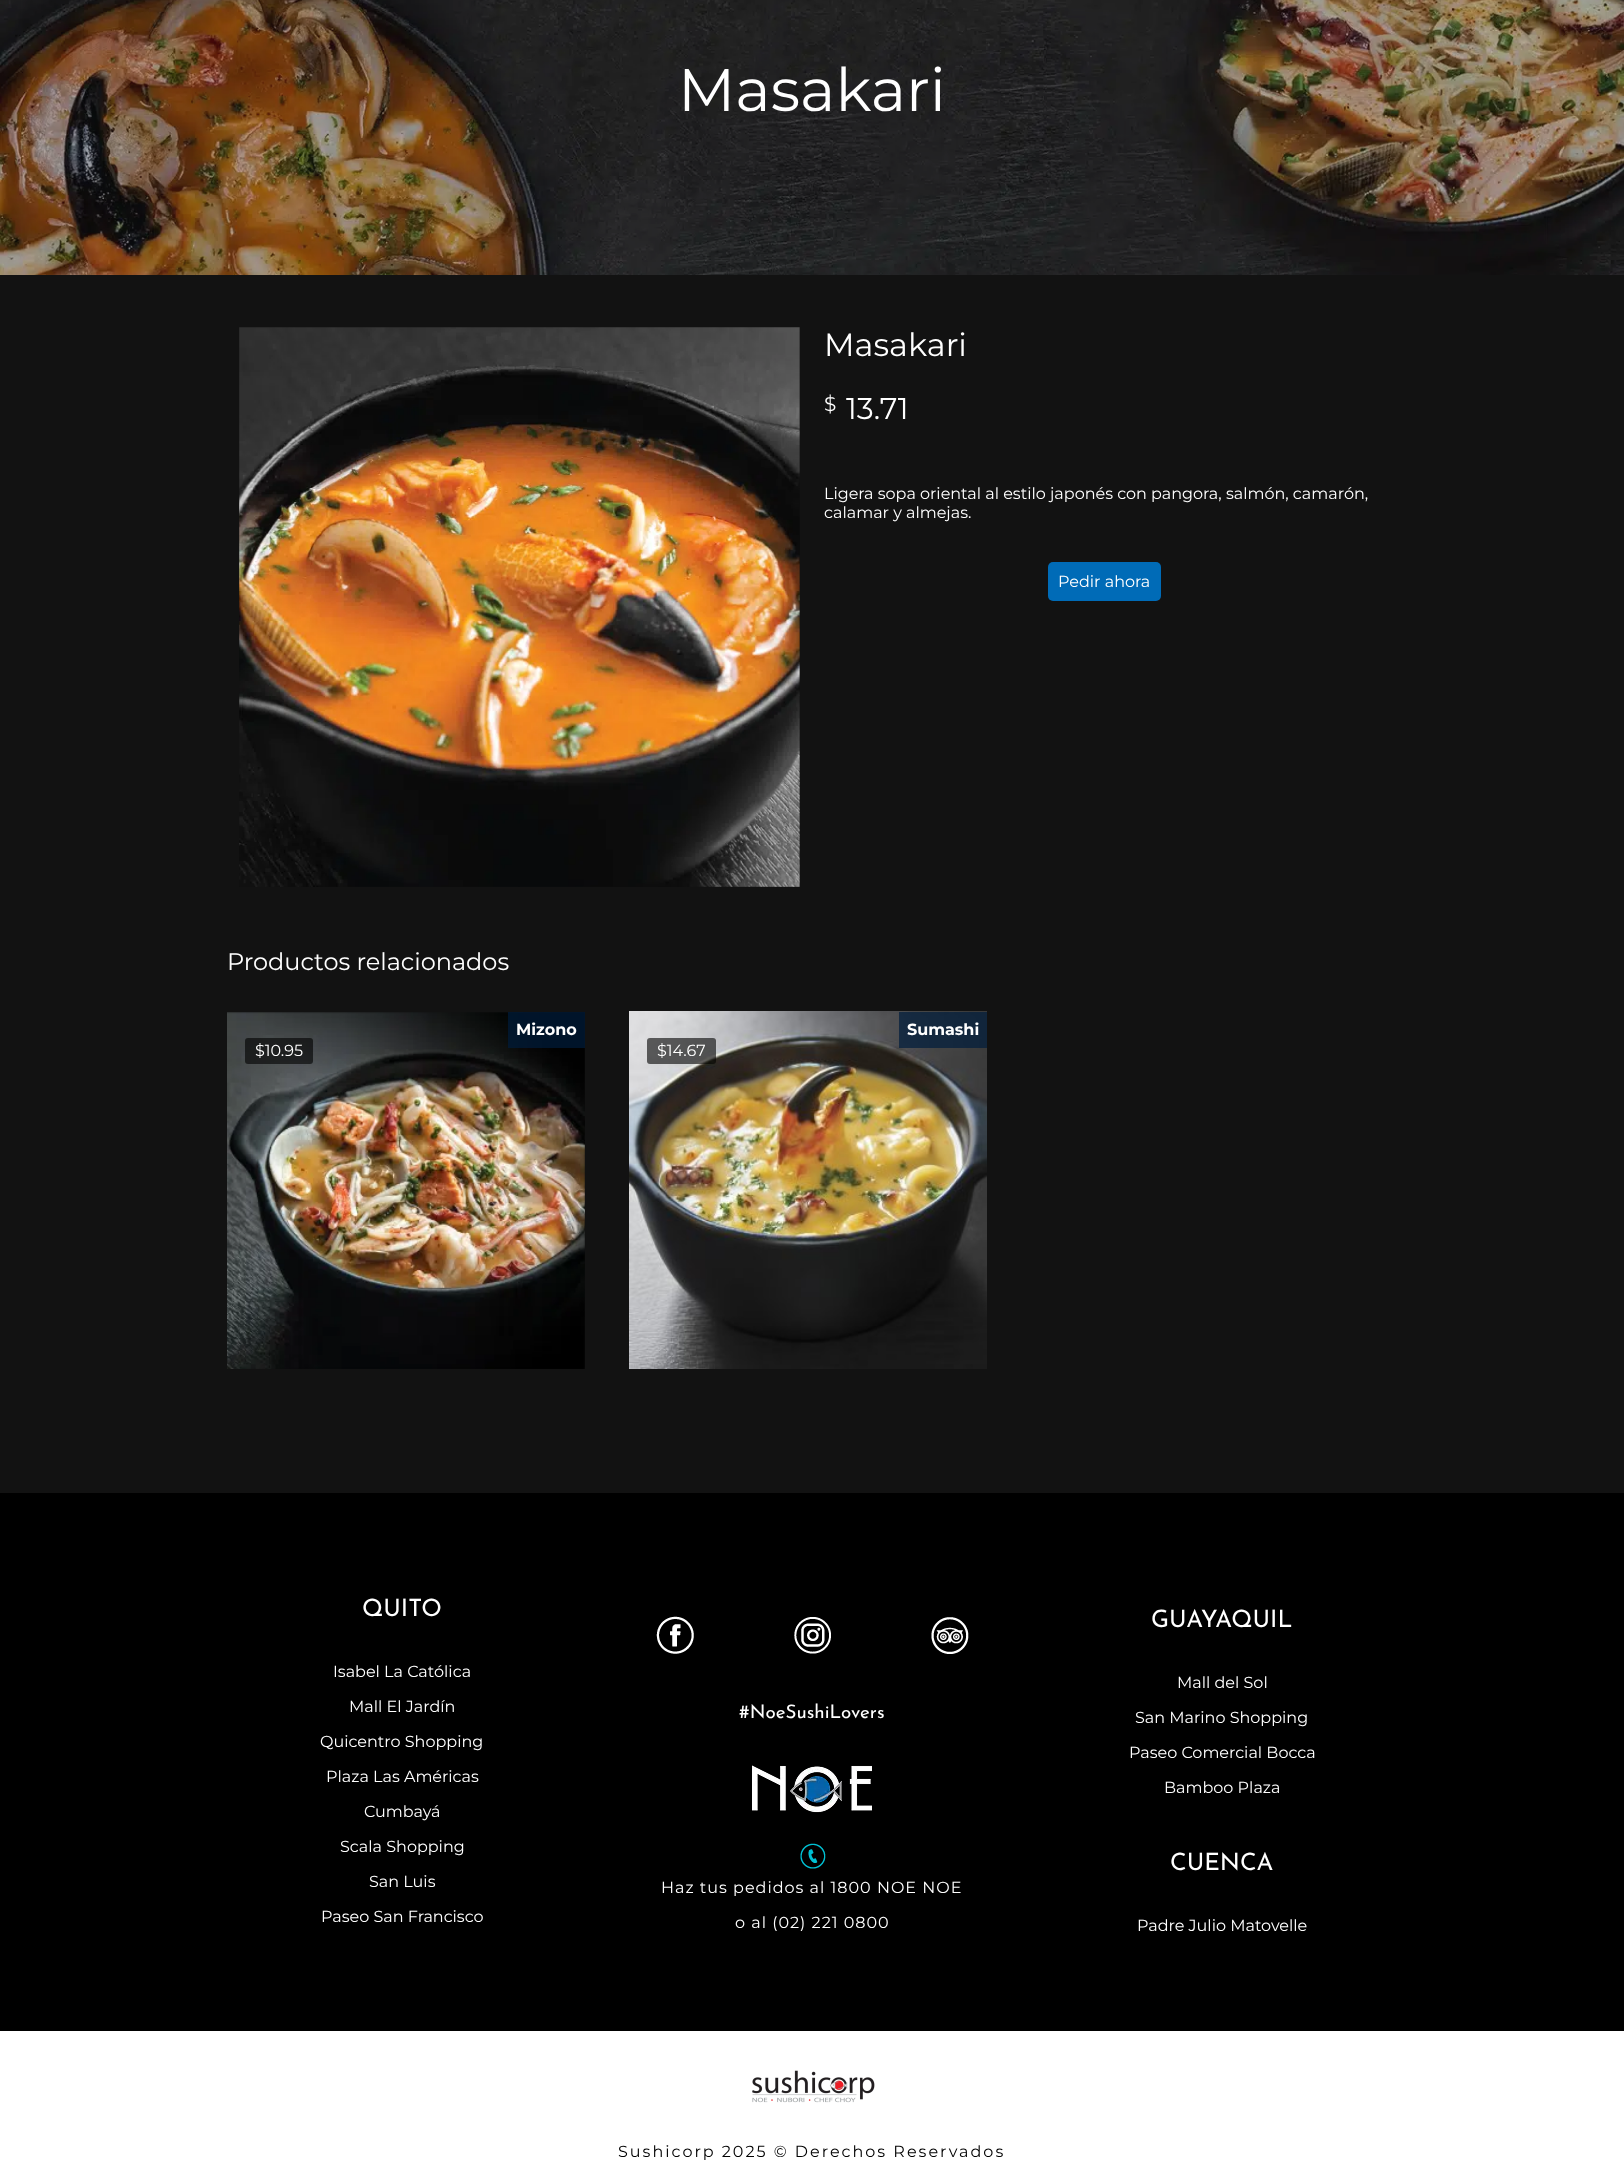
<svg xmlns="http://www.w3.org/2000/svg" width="1624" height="2177">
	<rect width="100%" height="100%" fill="#FFFFFF" />
	<rect x="0" y="275" width="1624" height="1218" fill="#121212" />
	<image x="0" y="0" width="1624" height="275" href="assets/img1.png" />
	<text x="678" y="111" font-family="Montserrat" font-size="60" fill="#FFFFFF">Masakari</text>
	<image x="239" y="327" width="561" height="560" href="assets/img2.png" />
	<text x="824" y="356" font-family="Montserrat" font-size="32" fill="#FFFFFF">Masakari</text>
	<text x="824" y="411" font-family="Montserrat" font-size="20" fill="#FFFFFF">$</text>
	<text x="846" y="419" font-family="Montserrat" font-size="30" fill="#FFFFFF">13.71</text>
	<g font-family="Montserrat" font-size="16" fill="#FFFFFF">
		<text x="824" y="499">Ligera sopa oriental al estilo japonés con pangora, salmón, camarón,</text>
		<text x="824" y="518">calamar y almejas.</text>
	</g>
	<rect x="1048" y="562" width="113" height="39" rx="5" fill="#006BB7" />
	<text x="1058" y="587" font-family="Montserrat" font-size="16" fill="#FFFFFF">Pedir ahora</text>
	<text x="227" y="970" font-family="Montserrat" font-size="24" fill="#FFFFFF">Productos relacionados</text>
	<image x="227" y="1012" width="358" height="357" href="assets/img3.png" />
	<rect x="508" y="1012" width="77" height="36" fill="#001D3C" fill-opacity="0.7" />
	<text x="516" y="1035" font-family="Montserrat" font-size="16" font-weight="700" fill="#FFFFFF">Mizono</text>
	<rect x="245" y="1038" width="68" height="26" rx="3" fill="#000000" fill-opacity="0.6" />
	<text x="255" y="1056" font-family="Montserrat" font-size="16" fill="#FFFFFF">$10.95</text>
	<image x="629" y="1011" width="358" height="358" href="assets/img4.png" />
	<rect x="899" y="1012" width="88" height="36" fill="#001D3C" fill-opacity="0.7" />
	<text x="907" y="1035" font-family="Montserrat" font-size="16" font-weight="700" fill="#FFFFFF">Sumashi</text>
	<rect x="647" y="1038" width="69" height="26" rx="3" fill="#000000" fill-opacity="0.6" />
	<text x="657" y="1056" font-family="Montserrat" font-size="16" fill="#FFFFFF">$14.67</text>
	<rect x="0" y="1493" width="1624" height="538" fill="#000000" />
	<text x="362" y="1616" font-family="Josefin Sans" font-size="24" fill="#FFFFFF">QUITO</text>
	<g font-family="Montserrat" font-size="16" fill="#FFFFFF">
		<text x="333" y="1677">Isabel La Católica</text>
		<text x="349" y="1712">Mall El Jardín</text>
		<text x="320" y="1747">Quicentro Shopping</text>
		<text x="326" y="1782">Plaza Las Américas</text>
		<text x="364" y="1817">Cumbayá</text>
		<text x="340" y="1852">Scala Shopping</text>
		<text x="369" y="1887">San Luis</text>
		<text x="321" y="1922">Paseo San Francisco</text>
	</g>
	<image x="656" y="1616" width="38" height="38" href="assets/img5.png" />
	<image x="794" y="1617" width="37" height="37" href="assets/img6.png" />
	<image x="931" y="1617" width="38" height="37" href="assets/img7.png" />
	<text x="739" y="1718" font-family="Josefin Sans" font-size="18.75" fill="#FFFFFF">#NoeSushiLovers</text>
	<image x="752" y="1765" width="120" height="48" href="assets/img8.png" />
	<image x="800" y="1843" width="26" height="26" href="assets/img9.png" />
	<g font-family="Montserrat" font-size="16" letter-spacing="1" fill="#FFFFFF">
		<text x="661" y="1893">Haz tus pedidos al 1800 NOE NOE</text>
		<text x="735" y="1928">o al (02) 221 0800</text>
	</g>
	<text x="1151" y="1627" font-family="Josefin Sans" font-size="24" fill="#FFFFFF">GUAYAQUIL</text>
	<g font-family="Montserrat" font-size="16" fill="#FFFFFF">
		<text x="1177" y="1688">Mall del Sol</text>
		<text x="1135" y="1723">San Marino Shopping</text>
		<text x="1129" y="1758">Paseo Comercial Bocca</text>
		<text x="1164" y="1793">Bamboo Plaza</text>
	</g>
	<text x="1170" y="1870" font-family="Josefin Sans" font-size="24" fill="#FFFFFF">CUENCA</text>
	<text x="1137" y="1931" font-family="Montserrat" font-size="16" fill="#FFFFFF">Padre Julio Matovelle</text>
	<image x="752" y="2070" width="123" height="33" href="assets/img10.png" />
	<text x="618" y="2157" font-family="Montserrat" font-size="16" letter-spacing="2" fill="#000000">Sushicorp 2025 © Derechos Reservados</text>
</svg>
